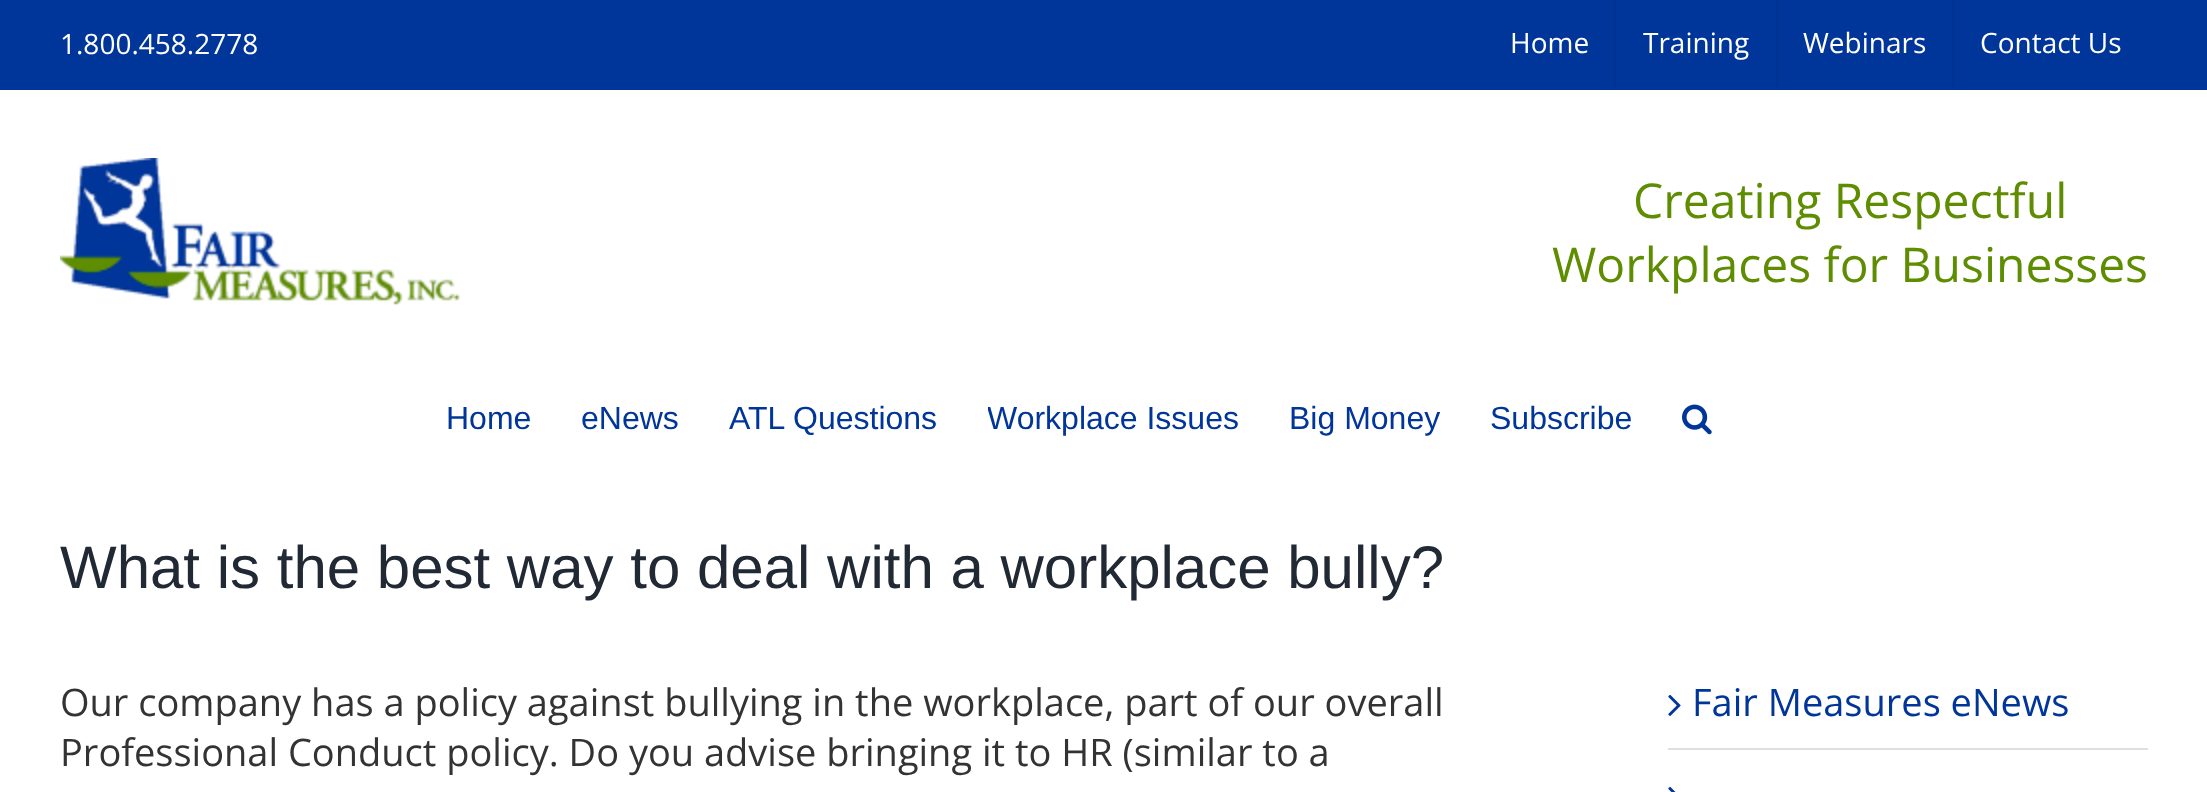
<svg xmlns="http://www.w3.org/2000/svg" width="2207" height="792">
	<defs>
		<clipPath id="clip1"><rect x="988" y="376" width="302" height="80" /></clipPath>
	</defs>
	<rect width="100%" height="100%" fill="#FFFFFF" />
	<rect x="0" y="0" width="2207" height="90" fill="#00359A" />
	<g font-family="Open Sans" font-size="28" fill="#FFFFFF">
		<text x="60" y="54">1.800.458.2778</text>
		<text x="1510" y="53">Home</text>
	</g>
	<rect x="1614" y="0" width="2" height="88" fill="#003291" />
	<text x="1643" y="53" font-family="Open Sans" font-size="28" fill="#FFFFFF">Training</text>
	<rect x="1776" y="0" width="2" height="88" fill="#003291" />
	<text x="1803" y="53" font-family="Open Sans" font-size="28" fill="#FFFFFF">Webinars</text>
	<rect x="1952" y="0" width="2" height="88" fill="#003291" />
	<text x="1980" y="53" font-family="Open Sans" font-size="28" fill="#FFFFFF">Contact Us</text>
	<image x="60" y="158" width="400" height="147" href="assets/img1.png" />
	<g font-family="Open Sans" font-size="48" fill="#5E8D01">
		<text x="1633" y="218">Creating Respectful</text>
		<text x="1552" y="282">Workplaces for Businesses</text>
	</g>
	<g font-family="Liberation Sans" font-size="32" fill="#00359A">
		<text x="446" y="429">Home</text>
		<text x="581" y="429">eNews</text>
		<text x="729" y="429">ATL Questions</text>
	</g>
	<g clip-path="url(#clip1)">
		<text x="987" y="429" font-family="Liberation Sans" font-size="32" fill="#00359A">Workplace Issues</text>
	</g>
	<g font-family="Liberation Sans" font-size="32" fill="#00359A">
		<text x="1289" y="429">Big Money</text>
		<text x="1490" y="429">Subscribe</text>
	</g>
	<image x="1682" y="404" width="30" height="31" href="assets/img2.png" />
	<text x="60" y="588" font-family="Liberation Sans" font-size="60" fill="#212934">What is the best way to deal with a workplace bully?</text>
	<g font-family="Open Sans" font-size="38" fill="#333333">
		<text x="60" y="716">Our company has a policy against bullying in the workplace, part of our overall</text>
		<text x="60" y="766">Professional Conduct policy. Do you advise bringing it to HR (similar to a</text>
	</g>
	<rect x="1668" y="748" width="480" height="2" fill="#E0DEDE" />
	<image x="1668" y="694" width="13" height="22" href="assets/img3.png" />
	<text x="1692" y="716" font-family="Open Sans" font-size="38" fill="#00359A">Fair Measures eNews</text>
	<image x="1668" y="786" width="8" height="6" href="assets/img4.png" />
</svg>
